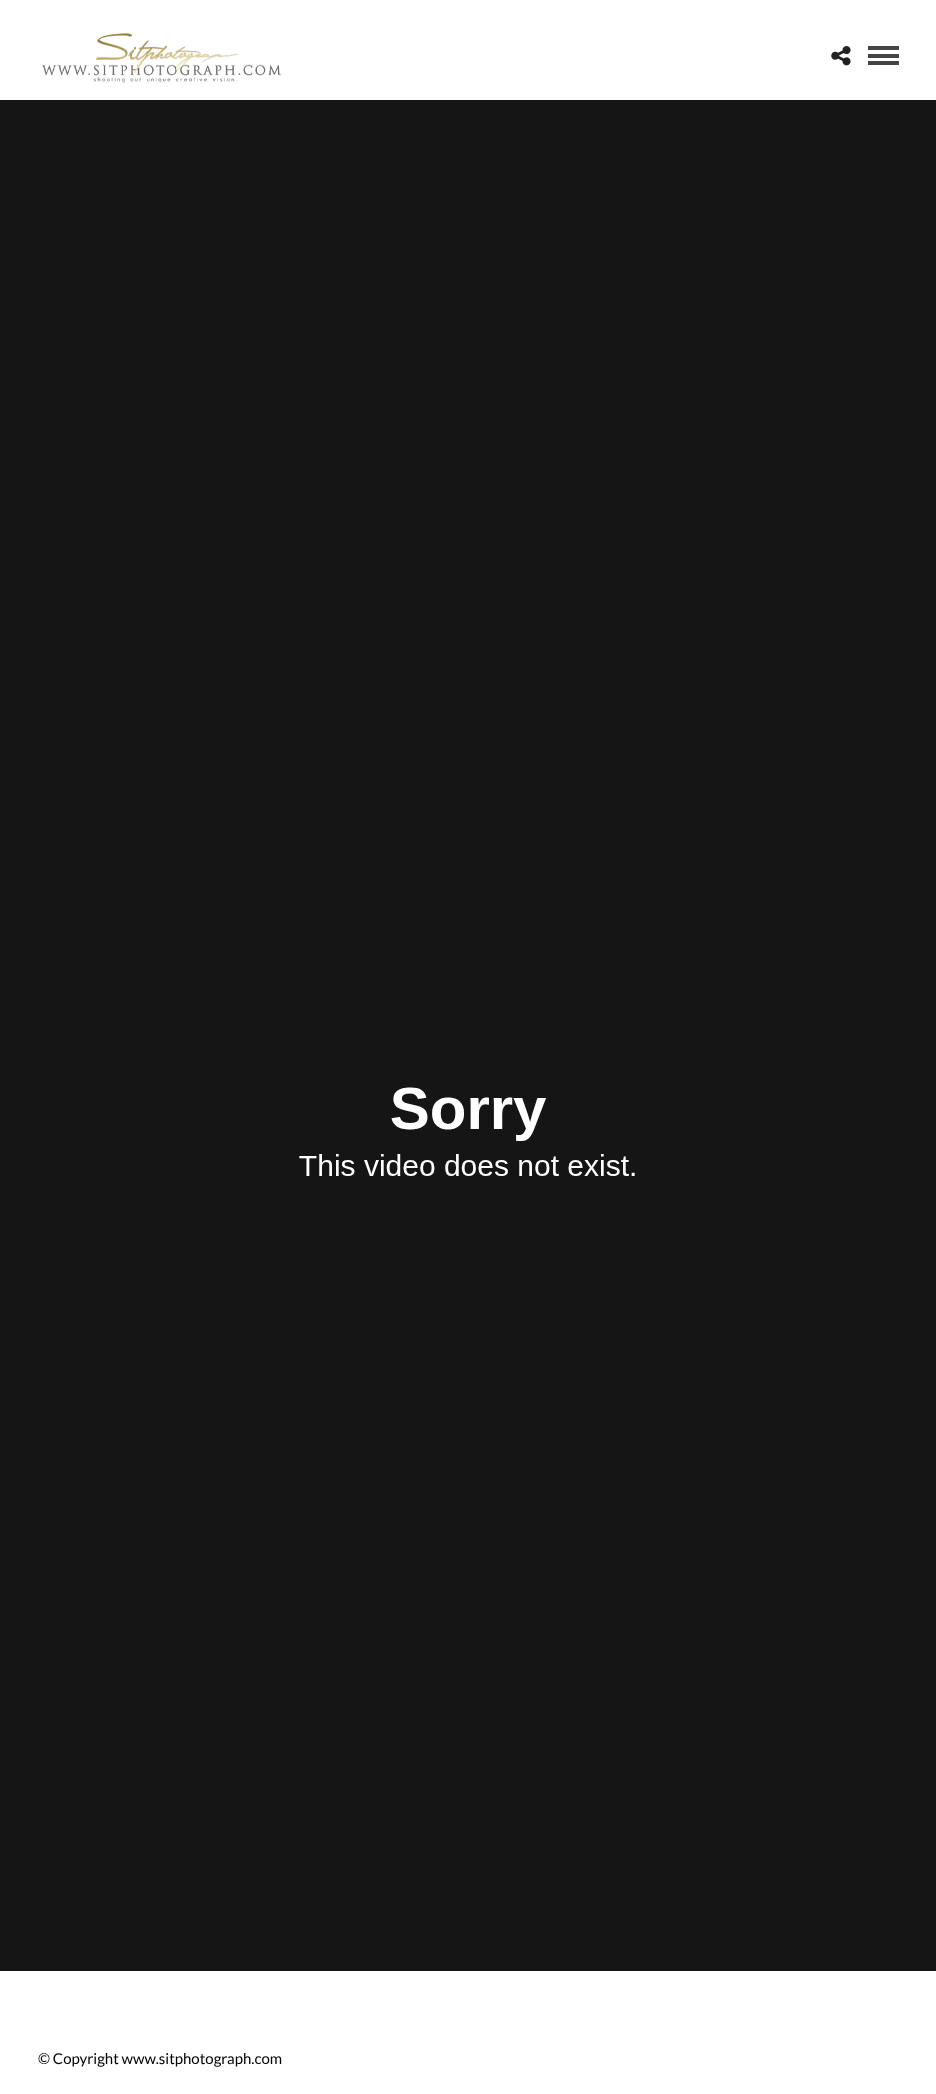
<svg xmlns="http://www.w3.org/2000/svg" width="936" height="2094">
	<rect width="100%" height="100%" fill="#FFFFFF" />
	<image x="42" y="33" width="239" height="50" href="assets/img1.png" />
	<image x="831" y="46" width="20" height="20" href="assets/img2.png" />
	<rect x="868" y="46" width="31" height="4" fill="#444444" />
	<rect x="868" y="54" width="31" height="4" fill="#444444" />
	<rect x="868" y="61" width="31" height="4" fill="#444444" />
	<image x="0" y="100" width="936" height="1871" href="assets/img3.png" />
	<text x="38" y="2064" font-family="Lato" font-size="15" fill="#000000">© Copyright www.sitphotograph.com</text>
</svg>
